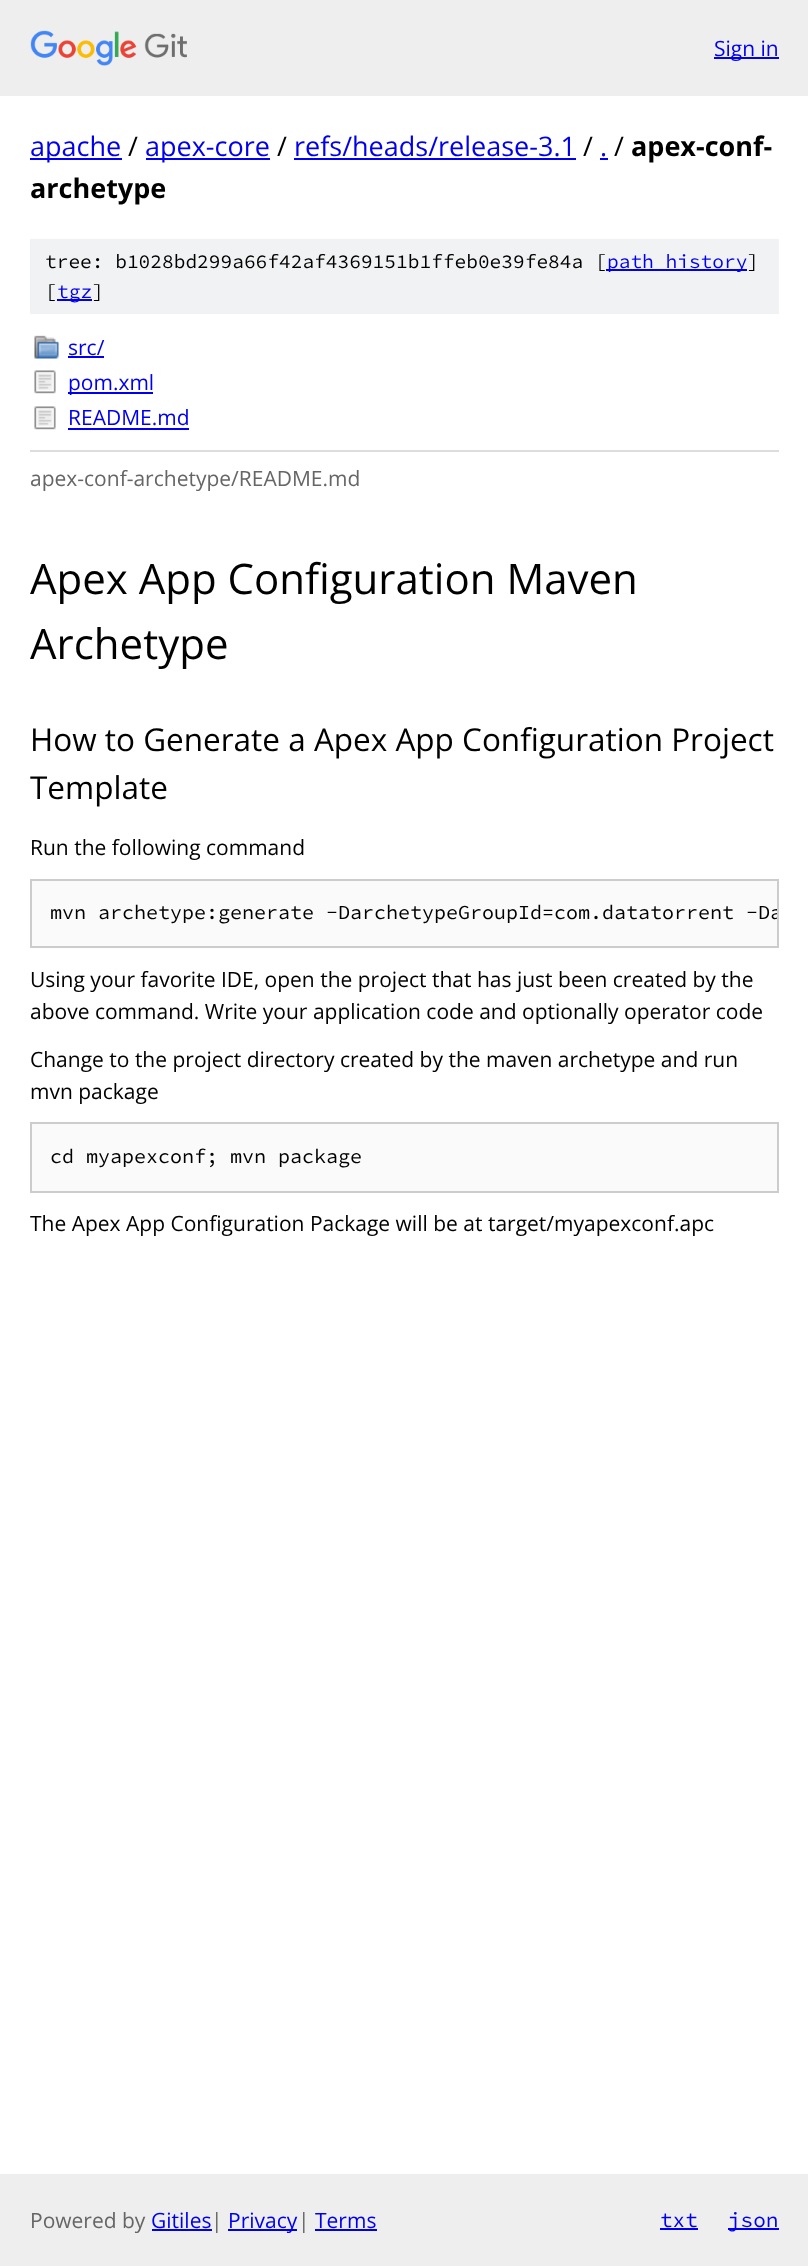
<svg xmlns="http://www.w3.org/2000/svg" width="808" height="2266">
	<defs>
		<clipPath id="clip1"><rect x="32" y="881" width="745" height="66" /></clipPath>
	</defs>
	<rect width="100%" height="100%" fill="#FFFFFF" />
	<rect x="0" y="0" width="808" height="96" fill="#EEEEEE" />
	<image x="30" y="30" width="157" height="36" href="assets/img1.png" />
	<rect x="714" y="57" width="65" height="2" fill="#0000EE" />
	<text x="714" y="56" font-family="Open Sans" font-size="21" fill="#0000EE">Sign in</text>
	<rect x="30" y="158" width="92" height="2" fill="#0000EE" />
	<text x="30" y="156" font-family="Open Sans" font-size="27" fill="#0000EE">apache</text>
	<text x="128" y="156" font-family="Open Sans" font-size="27" fill="#000000">/</text>
	<rect x="146" y="158" width="124" height="2" fill="#0000EE" />
	<text x="145" y="156" font-family="Open Sans" font-size="27" fill="#0000EE">apex-core</text>
	<text x="277" y="156" font-family="Open Sans" font-size="27" fill="#000000">/</text>
	<text x="294" y="156" font-family="Open Sans" font-size="27" fill="#0000EE">refs/heads/release-3.1</text>
	<rect x="294" y="158" width="282" height="2" fill="#0000EE" />
	<text x="583" y="156" font-family="Open Sans" font-size="27" fill="#000000">/</text>
	<text x="600" y="156" font-family="Open Sans" font-size="27" fill="#0000EE">.</text>
	<rect x="600" y="158" width="8" height="2" fill="#0000EE" />
	<text x="614" y="156" font-family="Open Sans" font-size="27" fill="#000000">/</text>
	<g font-family="Open Sans" font-size="27" font-weight="700" fill="#000000">
		<text x="631" y="156">apex-conf-</text>
		<text x="30" y="198">archetype</text>
	</g>
	<rect x="30" y="239" width="749" height="75" fill="#F1F2F3" />
	<text x="45" y="268" font-family="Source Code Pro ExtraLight" font-size="19.5" font-weight="200" fill="#000000">tree: b1028bd299a66f42af4369151b1ffeb0e39fe84a [</text>
	<rect x="606" y="269" width="141" height="2" fill="#0000EE" />
	<text x="607" y="268" font-family="Source Code Pro ExtraLight" font-size="19.5" font-weight="200" fill="#0000EE">path history</text>
	<g font-family="Source Code Pro ExtraLight" font-size="19.5" font-weight="200" fill="#000000">
		<text x="747" y="268">]</text>
		<text x="45" y="298">[</text>
	</g>
	<rect x="57" y="299" width="35" height="2" fill="#0000EE" />
	<text x="57" y="298" font-family="Source Code Pro ExtraLight" font-size="19.5" font-weight="200" fill="#0000EE">tgz</text>
	<text x="92" y="298" font-family="Source Code Pro ExtraLight" font-size="19.5" font-weight="200" fill="#000000">]</text>
	<image x="34" y="335" width="25" height="24" href="assets/img2.png" />
	<text x="68" y="355" font-family="Open Sans" font-size="21" fill="#0000EE">src/</text>
	<rect x="68" y="356" width="36" height="2" fill="#0000EE" />
	<image x="34" y="370" width="22" height="24" href="assets/img3.png" />
	<rect x="68" y="392" width="85" height="2" fill="#0000EE" />
	<text x="68" y="390" font-family="Open Sans" font-size="21" fill="#0000EE">pom.xml</text>
	<image x="34" y="406" width="22" height="24" href="assets/img3.png" />
	<text x="68" y="425" font-family="Open Sans" font-size="21" fill="#0000EE">README.md</text>
	<rect x="68" y="428" width="121" height="2" fill="#0000EE" />
	<rect x="30" y="450" width="749" height="2" fill="#DDDDDD" />
	<text x="30" y="486" font-family="Open Sans" font-size="21" fill="#666666">apex-conf-archetype/README.md</text>
	<g font-family="Open Sans" font-size="42" fill="#000000">
		<text x="30" y="594">Apex App Configuration Maven</text>
		<text x="30" y="659">Archetype</text>
	</g>
	<g font-family="Open Sans" font-size="31.5" fill="#000000">
		<text x="30" y="751">How to Generate a Apex App Configuration Project</text>
		<text x="30" y="799">Template</text>
	</g>
	<text x="30" y="855" font-family="Open Sans" font-size="21" fill="#000000">Run the following command</text>
	<rect x="31" y="880" width="747" height="67" fill="#FAFAFA" stroke="#CCCCCC" stroke-width="2" />
	<g clip-path="url(#clip1)">
		<text x="50" y="919" font-family="Source Code Pro ExtraLight" font-size="20" font-weight="200" fill="#000000">mvn archetype:generate -DarchetypeGroupId=com.datatorrent -Da</text>
	</g>
	<g font-family="Open Sans" font-size="21" fill="#000000">
		<text x="30" y="987">Using your favorite IDE, open the project that has just been created by the</text>
		<text x="30" y="1019">above command. Write your application code and optionally operator code</text>
		<text x="30" y="1067">Change to the project directory created by the maven archetype and run</text>
		<text x="30" y="1099">mvn package</text>
	</g>
	<rect x="31" y="1123" width="747" height="69" fill="#FAFAFA" stroke="#CCCCCC" stroke-width="2" />
	<text x="50" y="1163" font-family="Source Code Pro ExtraLight" font-size="20" font-weight="200" fill="#000000">cd myapexconf; mvn package</text>
	<text x="30" y="1231" font-family="Open Sans" font-size="21" fill="#000000">The Apex App Configuration Package will be at target/myapexconf.apc</text>
	<rect x="0" y="2174" width="808" height="92" fill="#EEEEEE" />
	<text x="30" y="2228" font-family="Open Sans" font-size="21" fill="#666666">Powered by</text>
	<text x="151" y="2228" font-family="Open Sans" font-size="21" fill="#0000EE">Gitiles</text>
	<rect x="152" y="2229" width="60" height="2" fill="#0000EE" />
	<text x="211" y="2228" font-family="Open Sans" font-size="21" fill="#666666">|</text>
	<rect x="228" y="2229" width="69" height="2" fill="#0000EE" />
	<text x="228" y="2228" font-family="Open Sans" font-size="21" fill="#0000EE">Privacy</text>
	<text x="298" y="2228" font-family="Open Sans" font-size="21" fill="#666666">|</text>
	<text x="315" y="2228" font-family="Open Sans" font-size="21" fill="#0000EE">Terms</text>
	<rect x="315" y="2229" width="62" height="2" fill="#0000EE" />
	<text x="660" y="2227" font-family="Source Code Pro ExtraLight" font-size="21" font-weight="200" fill="#0000EE">txt</text>
	<rect x="660" y="2228" width="38" height="2" fill="#0000EE" />
	<rect x="728" y="2228" width="51" height="2" fill="#0000EE" />
	<text x="728" y="2227" font-family="Source Code Pro ExtraLight" font-size="21" font-weight="200" fill="#0000EE">json</text>
</svg>
